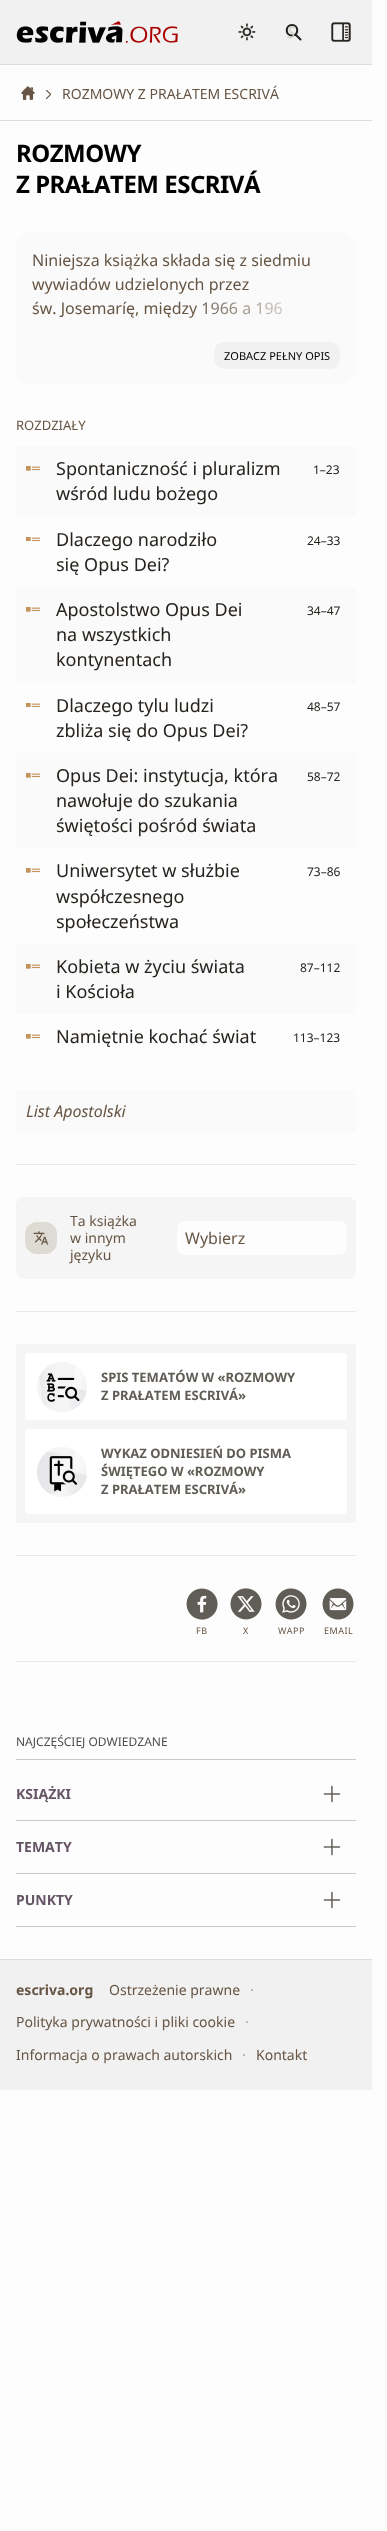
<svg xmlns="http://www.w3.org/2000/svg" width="387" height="2531">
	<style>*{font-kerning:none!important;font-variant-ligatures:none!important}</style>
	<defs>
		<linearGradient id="g1" gradientUnits="userSpaceOnUse" x1="186" y1="309" x2="340" y2="309"><stop offset="0" stop-color="#FAFAFA" stop-opacity="0" /><stop offset="0.9" stop-color="#FAFAFA" /></linearGradient>
	</defs>
	<rect width="100%" height="100%" fill="#FDFDFD" />
	<rect x="0" y="0" width="372" height="64" fill="#F1F1F1" />
	<rect x="0" y="64" width="372" height="1" fill="#DEDBD4" />
	<image x="16" y="21" width="162" height="22" href="assets/img1.png" />
	<image x="238" y="23" width="18" height="18" href="assets/img2.png" />
	<path d="M295.5 34.5L300.5 39.5M292 25C299 25 299 35.5 292 35.5C285 35.5 285 25 292 25Z" fill="none" stroke="#26221E" stroke-width="2.1" stroke-linecap="round" />
	<text x="287" y="38" font-family="Noto Sans" font-size="16" font-style="italic" fill="#CFCFCE">S</text>
	<image x="331" y="22" width="20" height="20" href="assets/img3.png" />
	<rect x="0" y="120" width="372" height="1" fill="#DEDBD4" />
	<image x="21" y="86" width="14" height="14" href="assets/img4.png" />
	<image x="46" y="90" width="5" height="9" href="assets/img5.png" />
	<text x="62" y="99" font-family="Noto Sans" font-size="14" fill="#665544">ROZMOWY Z PRAŁATEM ESCRIVÁ</text>
	<g font-family="Noto Sans" font-size="24" font-weight="700" letter-spacing="-0.5" fill="#000000">
		<text x="16" y="162">ROZMOWY</text>
		<text x="16" y="193">Z PRAŁATEM ESCRIVÁ</text>
	</g>
	<rect x="16" y="232" width="340" height="153" rx="16" fill="#FAFAFA" />
	<g font-family="Noto Sans" font-size="16" fill="#665544">
		<text x="32" y="266">Niniejsza książka składa się z siedmiu</text>
		<text x="32" y="290">wywiadów udzielonych przez</text>
		<text x="32" y="314">św. Josemaríę, między 1966 a 196</text>
	</g>
	<rect x="189" y="302" width="93" height="16" fill="url(#g1)" />
	<rect x="214" y="342" width="126" height="27" rx="10" fill="#F1F1F1" />
	<text x="224" y="360" font-family="Noto Sans" font-size="11" fill="#000000">ZOBACZ PEŁNY OPIS</text>
	<text x="16" y="430" font-family="Noto Sans" font-size="13" fill="#665544">ROZDZIAŁY</text>
	<rect x="16" y="446" width="340" height="71" fill="#FAFAFA" />
	<image x="26" y="466" width="14" height="5" href="assets/img6.png" />
	<g font-family="Noto Sans" font-size="18" fill="#26221E">
		<text x="56" y="475">Spontaniczność i pluralizm</text>
		<text x="56" y="500">wśród ludu bożego</text>
	</g>
	<text x="313" y="474" font-family="Noto Sans" font-size="12" fill="#26221E">1–23</text>
	<image x="26" y="537" width="14" height="4" href="assets/img7.png" />
	<g font-family="Noto Sans" font-size="18" fill="#26221E">
		<text x="56" y="546">Dlaczego narodziło</text>
		<text x="56" y="571">się Opus Dei?</text>
	</g>
	<text x="307" y="545" font-family="Noto Sans" font-size="12" fill="#26221E">24–33</text>
	<rect x="16" y="587" width="340" height="96" fill="#FAFAFA" />
	<image x="26" y="607" width="14" height="5" href="assets/img6.png" />
	<g font-family="Noto Sans" font-size="18" fill="#26221E">
		<text x="56" y="616">Apostolstwo Opus Dei</text>
		<text x="56" y="641">na wszystkich</text>
		<text x="56" y="666">kontynentach</text>
	</g>
	<text x="307" y="615" font-family="Noto Sans" font-size="12" fill="#26221E">34–47</text>
	<image x="26" y="703" width="14" height="4" href="assets/img7.png" />
	<g font-family="Noto Sans" font-size="18" fill="#26221E">
		<text x="56" y="712">Dlaczego tylu ludzi</text>
		<text x="56" y="737">zbliża się do Opus Dei?</text>
	</g>
	<text x="307" y="711" font-family="Noto Sans" font-size="12" fill="#26221E">48–57</text>
	<rect x="16" y="753" width="340" height="95" fill="#FAFAFA" />
	<image x="26" y="773" width="14" height="5" href="assets/img6.png" />
	<g font-family="Noto Sans" font-size="18" fill="#26221E">
		<text x="56" y="782">Opus Dei: instytucja, która</text>
		<text x="56" y="807">nawołuje do szukania</text>
		<text x="56" y="832">świętości pośród świata</text>
	</g>
	<text x="307" y="781" font-family="Noto Sans" font-size="12" fill="#26221E">58–72</text>
	<image x="26" y="868" width="14" height="5" href="assets/img8.png" />
	<g font-family="Noto Sans" font-size="18" fill="#26221E">
		<text x="56" y="877">Uniwersytet w służbie</text>
		<text x="56" y="903">współczesnego</text>
		<text x="56" y="928">społeczeństwa</text>
	</g>
	<text x="307" y="876" font-family="Noto Sans" font-size="12" fill="#26221E">73–86</text>
	<rect x="16" y="944" width="340" height="70" fill="#FAFAFA" />
	<image x="26" y="964" width="14" height="5" href="assets/img6.png" />
	<g font-family="Noto Sans" font-size="18" fill="#26221E">
		<text x="56" y="973">Kobieta w życiu świata</text>
		<text x="56" y="998">i Kościoła</text>
	</g>
	<text x="300" y="972" font-family="Noto Sans" font-size="12" fill="#26221E">87–112</text>
	<image x="26" y="1034" width="14" height="5" href="assets/img8.png" />
	<text x="56" y="1043" font-family="Noto Sans" font-size="18" fill="#26221E">Namiętnie kochać świat</text>
	<text x="293" y="1042" font-family="Noto Sans" font-size="12" fill="#26221E">113–123</text>
	<rect x="16" y="1090" width="340" height="42" fill="#FAFAFA" />
	<text x="26" y="1117" font-family="Noto Sans" font-size="16" font-style="italic" fill="#665544">List Apostolski</text>
	<rect x="16" y="1164" width="340" height="1" fill="#ECE9E3" />
	<rect x="16" y="1197" width="340" height="82" rx="8" fill="#F5F5F5" />
	<rect x="25" y="1222" width="32" height="32" rx="12" fill="#DEDBD4" />
	<image x="33" y="1231" width="16" height="14" href="assets/img9.png" />
	<g font-family="Noto Sans" font-size="14" fill="#665544">
		<text x="70" y="1226">Ta książka</text>
		<text x="70" y="1243">w innym</text>
		<text x="70" y="1260">języku</text>
	</g>
	<rect x="177" y="1221" width="170" height="34" rx="8" fill="#FDFDFD" />
	<text x="185" y="1244" font-family="Noto Sans" font-size="16" fill="#665544">Wybierz</text>
	<rect x="16" y="1311" width="340" height="1" fill="#ECE9E3" />
	<rect x="16" y="1344" width="340" height="179" rx="3" fill="#F5F5F5" />
	<rect x="25" y="1353" width="322" height="67" rx="4" fill="#FFFFFF" />
	<image x="37" y="1362" width="50" height="50" href="assets/img10.png" />
	<g font-family="Noto Sans" font-size="13" font-weight="700" fill="#605C56">
		<text x="101" y="1382">SPIS TEMATÓW W «ROZMOWY</text>
		<text x="101" y="1400">Z PRAŁATEM ESCRIVÁ»</text>
	</g>
	<rect x="25" y="1429" width="322" height="85" rx="4" fill="#FFFFFF" />
	<image x="37" y="1447" width="50" height="50" href="assets/img11.png" />
	<g font-family="Noto Sans" font-size="13" font-weight="700" fill="#605C56">
		<text x="101" y="1458">WYKAZ ODNIESIEŃ DO PISMA</text>
		<text x="101" y="1476">ŚWIĘTEGO W «ROZMOWY</text>
		<text x="101" y="1494">Z PRAŁATEM ESCRIVÁ»</text>
	</g>
	<rect x="16" y="1555" width="340" height="1" fill="#ECE9E3" />
	<rect x="16" y="1661" width="340" height="1" fill="#ECE9E3" />
	<image x="186" y="1588" width="32" height="32" href="assets/img12.png" />
	<text x="196" y="1634" font-family="Noto Sans" font-size="9" letter-spacing="0.5" fill="#665544">FB</text>
	<image x="230" y="1588" width="32" height="32" href="assets/img13.png" />
	<text x="243" y="1634" font-family="Noto Sans" font-size="9" letter-spacing="0.5" fill="#665544">X</text>
	<image x="275" y="1588" width="32" height="32" href="assets/img14.png" />
	<text x="278" y="1634" font-family="Noto Sans" font-size="9" letter-spacing="0.5" fill="#665544">WAPP</text>
	<image x="322" y="1588" width="32" height="32" href="assets/img15.png" />
	<text x="324" y="1634" font-family="Noto Sans" font-size="9" letter-spacing="0.5" fill="#665544">EMAIL</text>
	<rect x="16" y="1759" width="340" height="1" fill="#CECBC4" />
	<text x="16" y="1746" font-family="Noto Sans" font-size="12" fill="#4D4D4D">NAJCZĘŚCIEJ ODWIEDZANE</text>
	<rect x="16" y="1820" width="340" height="1" fill="#CECBC4" />
	<text x="16" y="1799" font-family="Noto Sans" font-size="14" font-weight="700" fill="#665566">KSIĄŻKI</text>
	<image x="323" y="1785" width="18" height="18" href="assets/img16.png" />
	<rect x="16" y="1873" width="340" height="1" fill="#CECBC4" />
	<text x="16" y="1852" font-family="Noto Sans" font-size="14" font-weight="700" fill="#665566">TEMATY</text>
	<image x="323" y="1838" width="18" height="18" href="assets/img16.png" />
	<rect x="16" y="1926" width="340" height="1" fill="#CECBC4" />
	<text x="16" y="1905" font-family="Noto Sans" font-size="14" font-weight="700" fill="#665566">PUNKTY</text>
	<image x="323" y="1891" width="18" height="18" href="assets/img16.png" />
	<rect x="0" y="1960" width="372" height="130" fill="#F1F1F1" />
	<rect x="0" y="1959" width="372" height="1" fill="#DEDBD4" />
	<text x="16" y="1995" font-family="Noto Sans" font-size="14" font-weight="700" fill="#665544">escriva.org</text>
	<text x="109" y="1995" font-family="Noto Sans" font-size="14" fill="#665544">Ostrzeżenie prawne</text>
	<text x="250" y="1995" font-family="Noto Sans" font-size="14" fill="#A4A098">·</text>
	<text x="16" y="2027" font-family="Noto Sans" font-size="14" fill="#665544">Polityka prywatności i pliki cookie</text>
	<text x="245" y="2027" font-family="Noto Sans" font-size="14" fill="#A4A098">·</text>
	<text x="16" y="2060" font-family="Noto Sans" font-size="14" fill="#665544">Informacja o prawach autorskich</text>
	<text x="242" y="2060" font-family="Noto Sans" font-size="14" fill="#A4A098">·</text>
	<text x="256" y="2060" font-family="Noto Sans" font-size="14" fill="#665544">Kontakt</text>
</svg>
